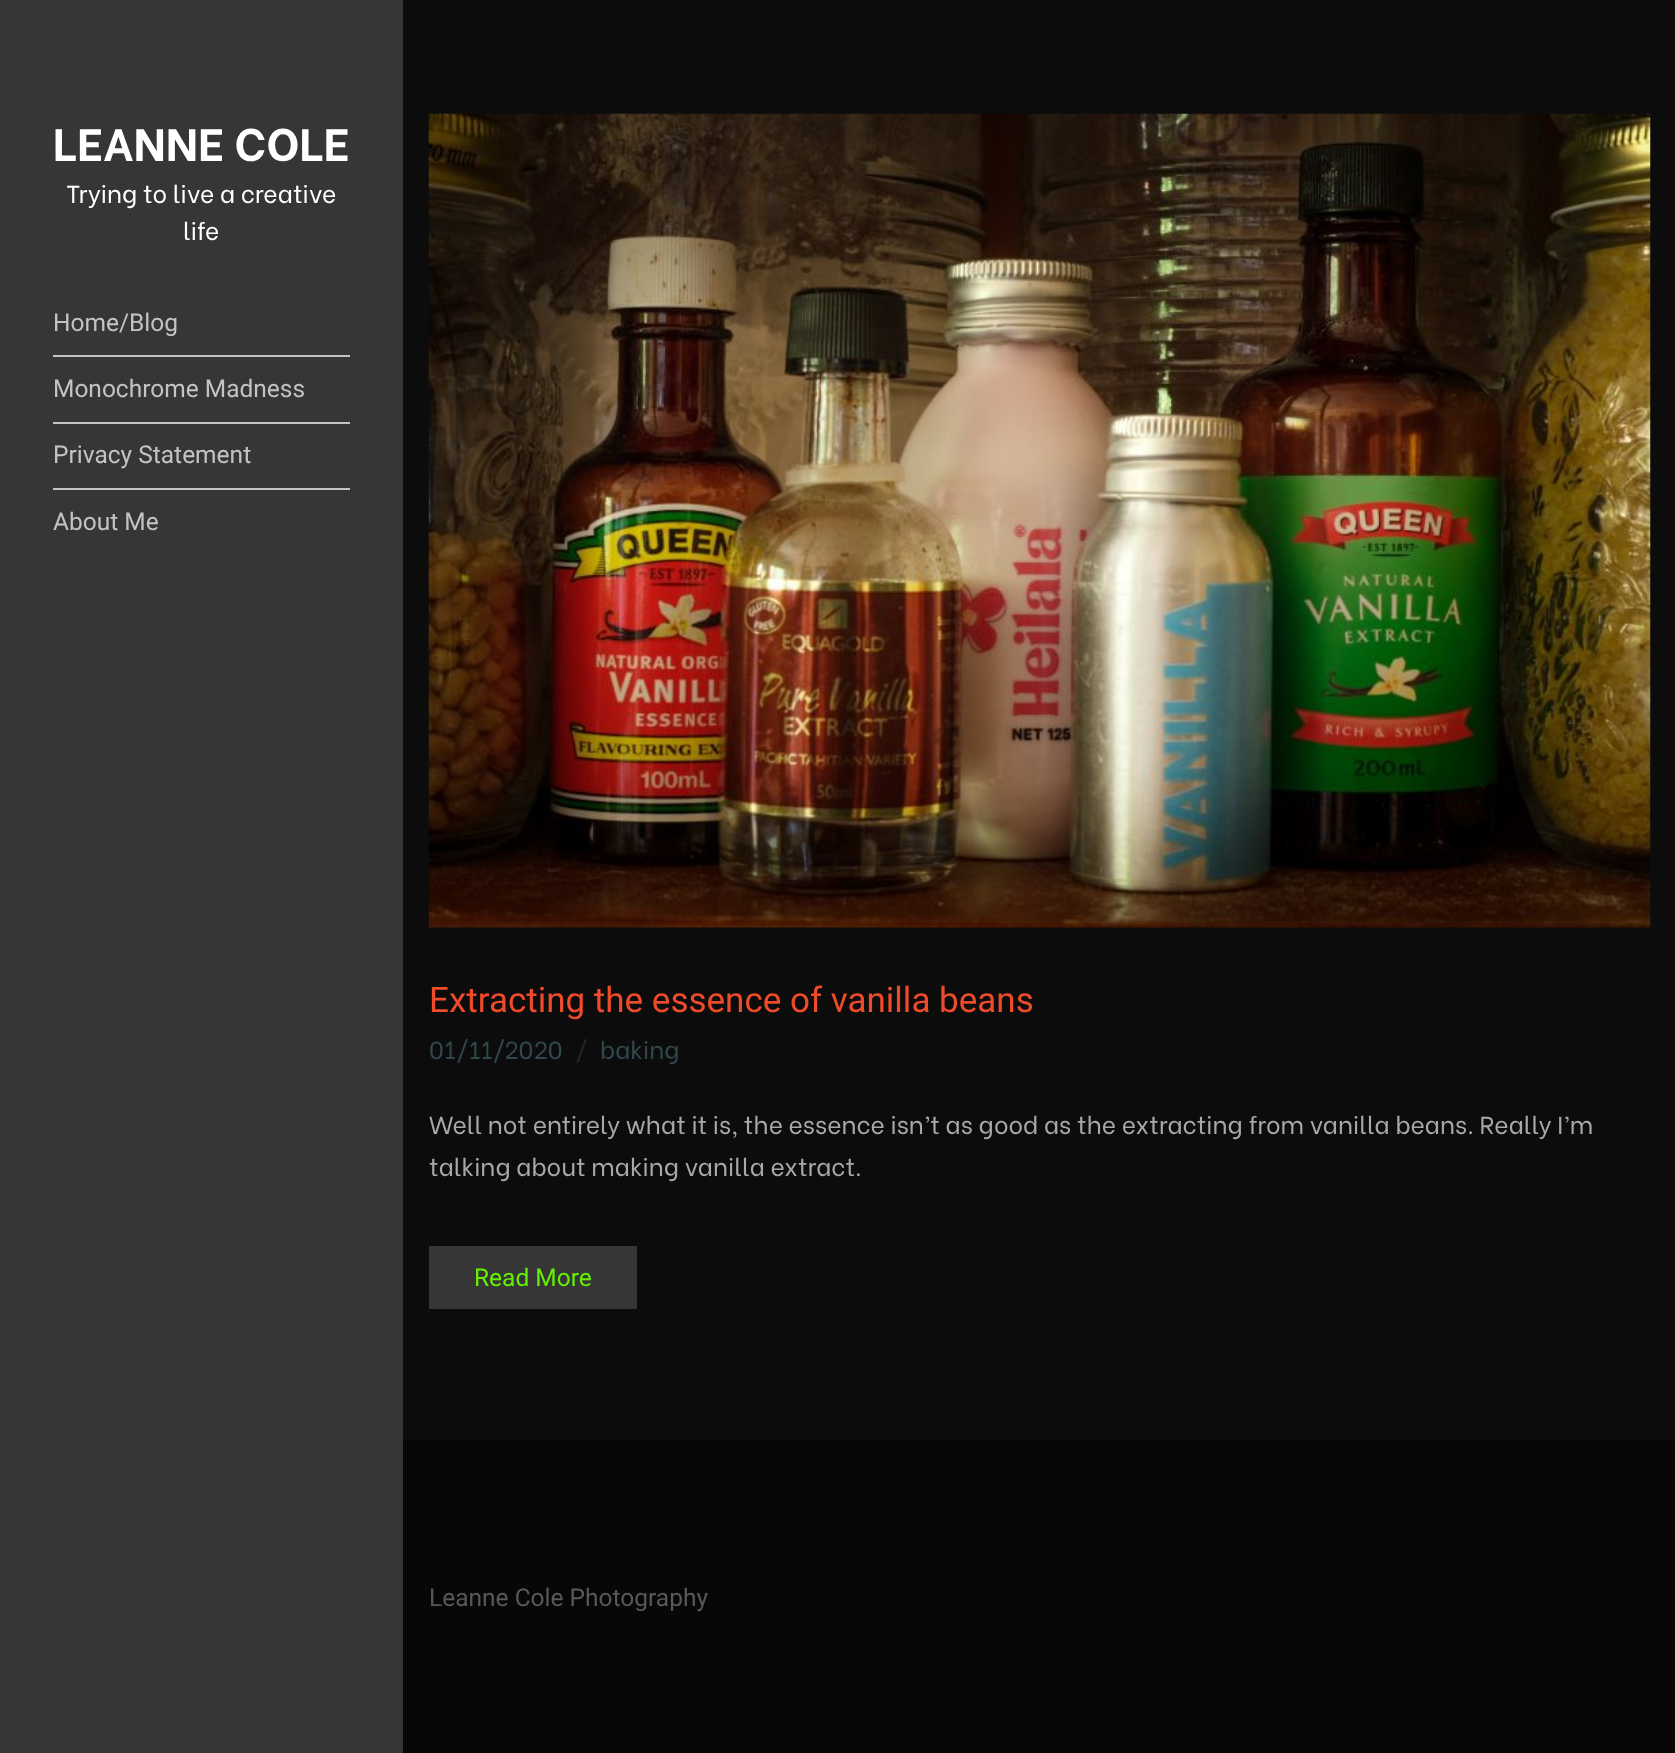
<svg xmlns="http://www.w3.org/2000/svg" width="1675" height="1753">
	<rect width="100%" height="100%" fill="#0C0C0C" />
	<rect x="0" y="0" width="403" height="1753" fill="#363636" />
	<text x="53" y="161" font-family="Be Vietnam" font-size="45.5" font-weight="700" fill="#FFFFFF">LEANNE COLE</text>
	<g font-family="Be Vietnam" font-size="24.5" fill="#FFFFFF">
		<text x="66" y="203">Trying to live a creative</text>
		<text x="183" y="240">life</text>
	</g>
	<rect x="53" y="355" width="297" height="2" fill="#C3C3C3" />
	<text x="53" y="331" font-family="Roboto" font-size="24.5" fill="#C3C3C3">Home/Blog</text>
	<rect x="53" y="422" width="297" height="2" fill="#C3C3C3" />
	<text x="53" y="397" font-family="Roboto" font-size="24.5" fill="#C3C3C3">Monochrome Madness</text>
	<rect x="53" y="488" width="297" height="2" fill="#C3C3C3" />
	<g font-family="Roboto" font-size="24.5" fill="#C3C3C3">
		<text x="53" y="463">Privacy Statement</text>
		<text x="53" y="530">About Me</text>
	</g>
	<image x="428" y="113" width="1223" height="815" href="assets/img1.png" />
	<text x="429" y="1012" font-family="Roboto" font-size="35" fill="#EE4B2B">Extracting the essence of vanilla beans</text>
	<text x="429" y="1059" font-family="Be Vietnam" font-size="24.5" fill="#31474C">01/11/2020</text>
	<text x="575" y="1059" font-family="Be Vietnam" font-size="24.5" fill="#1E292C">/</text>
	<text x="600" y="1059" font-family="Be Vietnam" font-size="24.5" fill="#31474C">baking</text>
	<g font-family="Be Vietnam" font-size="24.5" fill="#A8A8A8">
		<text x="429" y="1134">Well not entirely what it is, the essence isn’t as good as the extracting from vanilla beans. Really I’m</text>
		<text x="429" y="1176">talking about making vanilla extract.</text>
	</g>
	<rect x="429" y="1246" width="208" height="63" fill="#363636" />
	<text x="474" y="1286" font-family="Roboto" font-size="24.5" fill="#65EF02">Read More</text>
	<rect x="403" y="1440" width="1272" height="313" fill="#070707" />
	<text x="429" y="1606" font-family="Roboto" font-size="24.5" fill="#585858">Leanne Cole Photography</text>
</svg>
